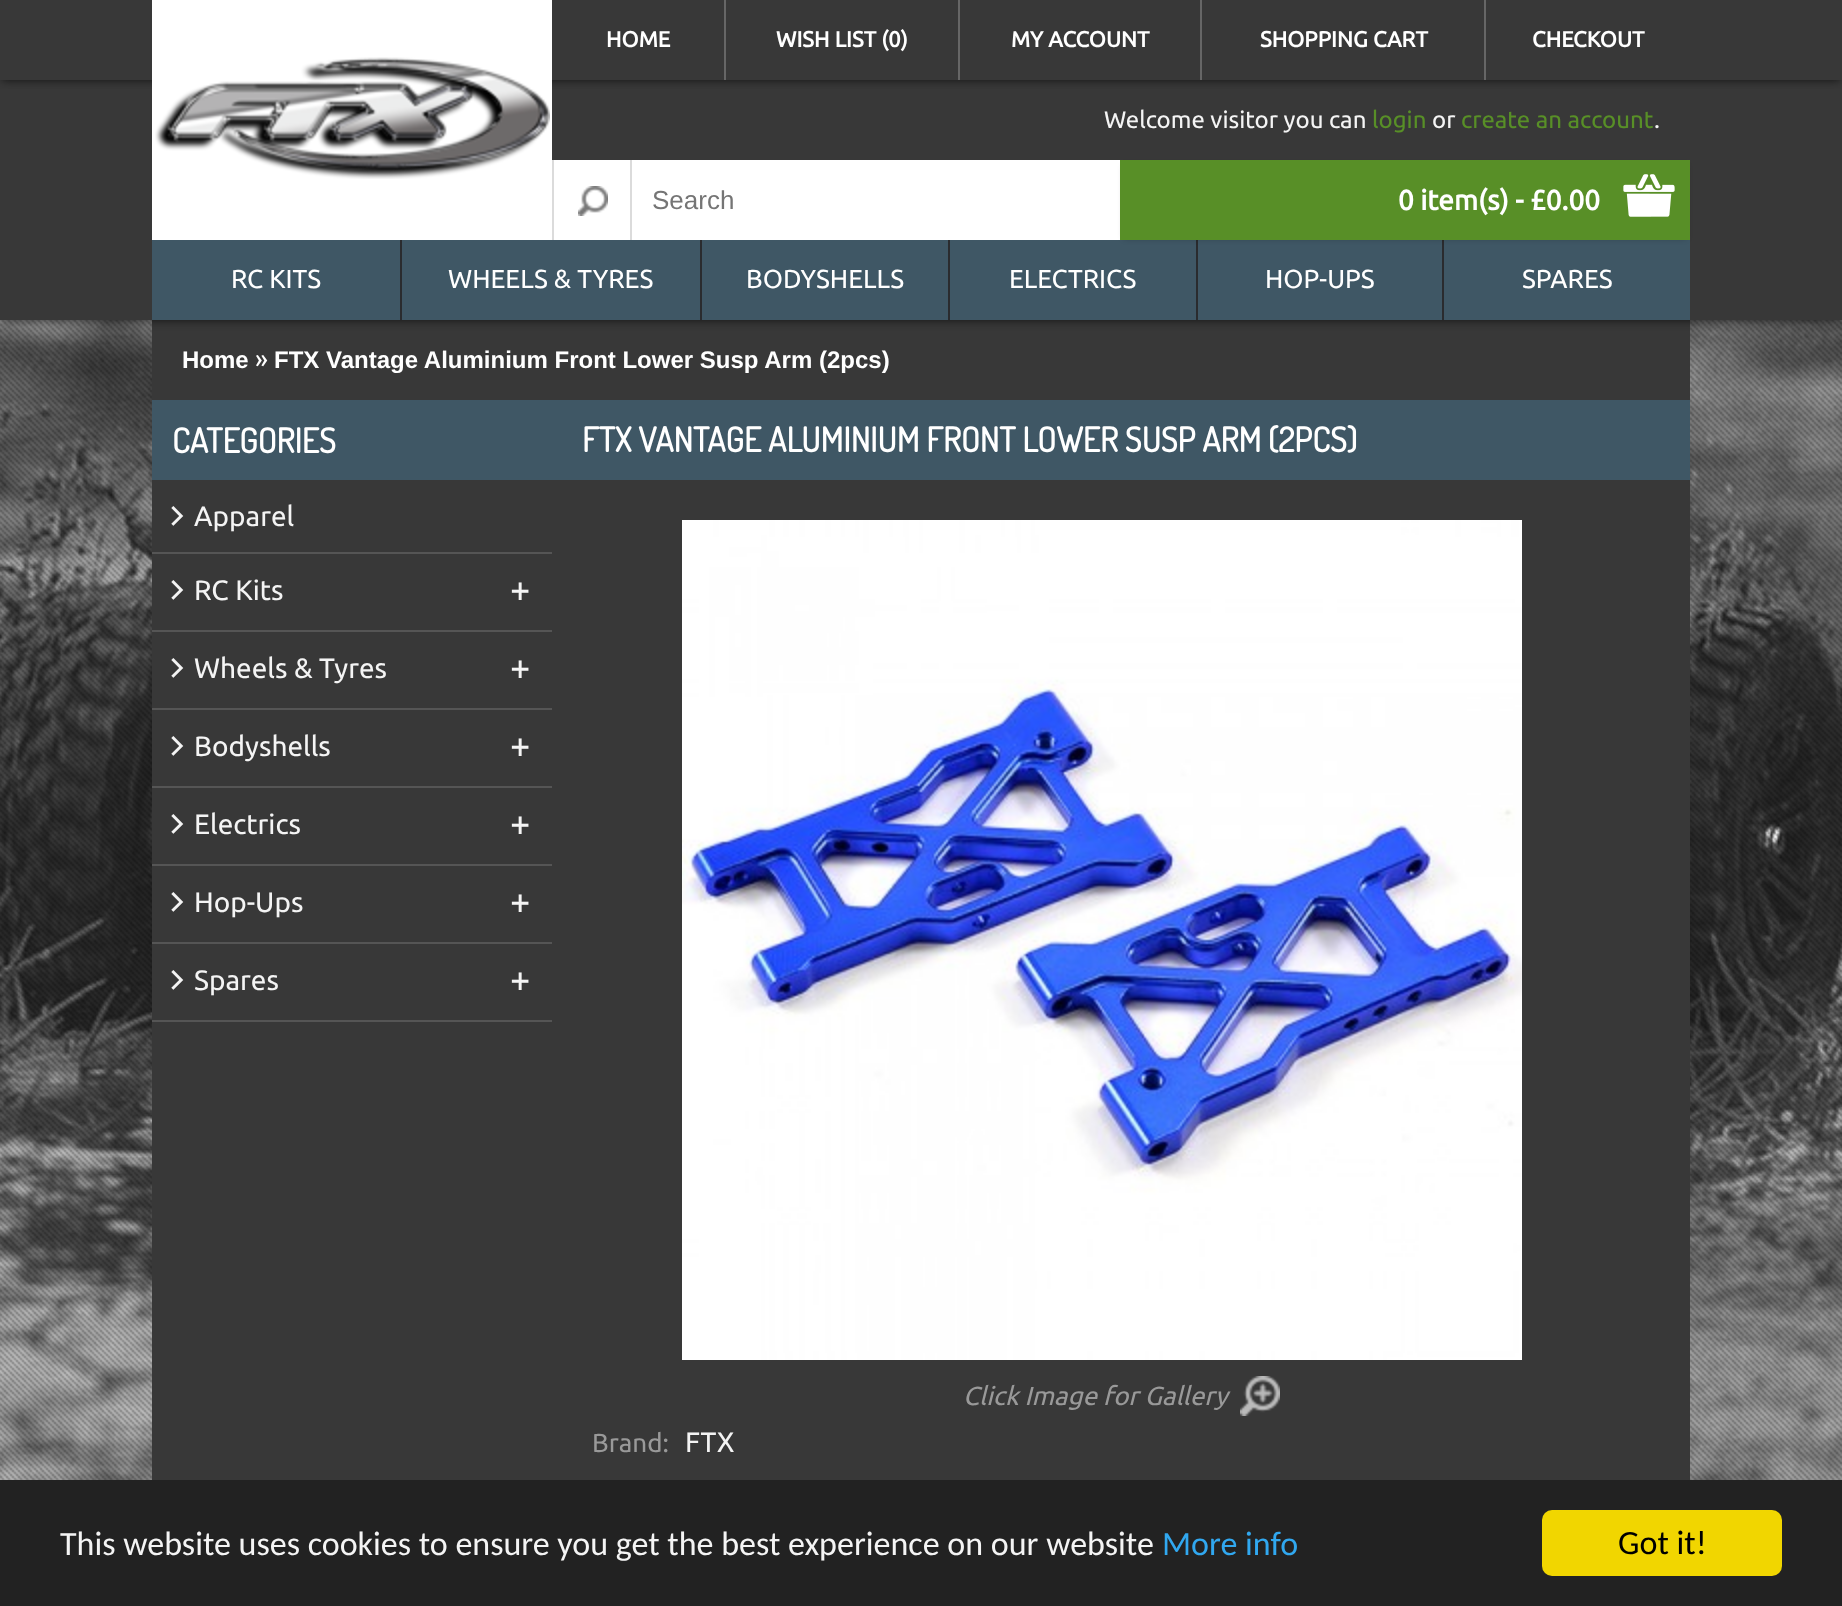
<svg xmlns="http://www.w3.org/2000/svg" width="1842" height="1606">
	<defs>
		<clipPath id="clip1"><rect x="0" y="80" width="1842" height="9" /></clipPath>
	</defs>
	<rect width="100%" height="100%" fill="#FFFFFF" />
	<image x="0" y="320" width="1842" height="1160" href="assets/img4.png" />
	<image x="0" y="320" width="1842" height="1160" href="assets/img5.png" />
	<rect x="152" y="320" width="1538" height="80" fill="#383838" />
	<rect x="2" y="4" width="1838" height="316" fill="#000000" fill-opacity="0.7" filter="blur(5px)" />
	<rect x="0" y="0" width="1842" height="320" fill="#383838" />
	<g clip-path="url(#clip1)">
		<rect x="2" y="4" width="1838" height="76" fill="#000000" fill-opacity="0.7" filter="blur(5px)" />
	</g>
	<rect x="152" y="0" width="400" height="240" fill="#FFFFFF" />
	<image x="155" y="57" width="395" height="122" href="assets/img1.png" />
	<text x="606" y="47" font-family="Ubuntu" font-size="22" font-weight="700" fill="#FFFFFF">HOME</text>
	<rect x="724" y="0" width="2" height="80" fill="#666666" />
	<text x="776" y="47" font-family="Ubuntu" font-size="22" font-weight="700" fill="#FFFFFF">WISH LIST (0)</text>
	<rect x="958" y="0" width="2" height="80" fill="#666666" />
	<text x="1011" y="47" font-family="Ubuntu" font-size="22" font-weight="700" fill="#FFFFFF">MY ACCOUNT</text>
	<rect x="1200" y="0" width="2" height="80" fill="#666666" />
	<text x="1260" y="47" font-family="Ubuntu" font-size="22" font-weight="700" fill="#FFFFFF">SHOPPING CART</text>
	<rect x="1484" y="0" width="2" height="80" fill="#666666" />
	<text x="1532" y="47" font-family="Ubuntu" font-size="22" font-weight="700" fill="#FFFFFF">CHECKOUT</text>
	<text x="1104" y="128" font-family="Ubuntu" font-size="24" fill="#F4F4F4">Welcome visitor you can</text>
	<text x="1372" y="128" font-family="Ubuntu" font-size="24" fill="#588F27">login</text>
	<text x="1432" y="128" font-family="Ubuntu" font-size="24" fill="#F4F4F4">or</text>
	<text x="1461" y="128" font-family="Ubuntu" font-size="24" fill="#588F27">create an account</text>
	<text x="1654" y="128" font-family="Ubuntu" font-size="24" fill="#F4F4F4">.</text>
	<rect x="554" y="160" width="566" height="80" fill="#FFFFFF" />
	<image x="578" y="186" width="30" height="30" href="assets/img2.png" />
	<rect x="630" y="160" width="2" height="80" fill="#DBDBDB" />
	<rect x="552" y="160" width="2" height="80" fill="#DBDBDB" />
	<text x="652" y="209" font-family="Liberation Sans" font-size="26" fill="#757575">Search</text>
	<rect x="152" y="240" width="1538" height="80" fill="#3F5765" />
	<rect x="1196" y="240" width="2" height="80" fill="#2A2B2E" />
	<rect x="1442" y="240" width="2" height="80" fill="#2A2B2E" />
	<rect x="1124" y="166" width="562" height="72" fill="#000000" fill-opacity="0.3" filter="blur(3px)" />
	<rect x="1120" y="160" width="570" height="80" fill="#588F27" />
	<text x="1398" y="210" font-family="Ubuntu" font-size="28" font-weight="700" fill="#FFFFFF">0 item(s) - £0.00</text>
	<image x="1623" y="174" width="52" height="43" href="assets/img3.png" />
	<text x="231" y="288" font-family="Ubuntu" font-size="26" fill="#FFFFFF">RC KITS</text>
	<rect x="400" y="240" width="2" height="80" fill="#2A2B2E" />
	<text x="448" y="288" font-family="Ubuntu" font-size="26" fill="#FFFFFF">WHEELS &amp; TYRES</text>
	<rect x="700" y="240" width="2" height="80" fill="#2A2B2E" />
	<text x="746" y="288" font-family="Ubuntu" font-size="26" fill="#FFFFFF">BODYSHELLS</text>
	<rect x="948" y="240" width="2" height="80" fill="#2A2B2E" />
	<g font-family="Ubuntu" font-size="26" fill="#FFFFFF">
		<text x="1009" y="288">ELECTRICS</text>
		<text x="1265" y="288">HOP-UPS</text>
		<text x="1522" y="288">SPARES</text>
	</g>
	<text x="182" y="368" font-family="Liberation Sans" font-size="24" font-weight="700" fill="#FFFFFF">Home</text>
	<text x="255" y="368" font-family="Ubuntu" font-size="26" fill="#FFFFFF">»</text>
	<text x="274" y="368" font-family="Liberation Sans" font-size="24" font-weight="700" fill="#FFFFFF">FTX Vantage Aluminium Front Lower Susp Arm (2pcs)</text>
	<rect x="152" y="480" width="1538" height="1000" fill="#383838" />
	<rect x="152" y="400" width="1538" height="80" fill="#3F5765" />
	<text x="172" y="453" font-family="Dosis" font-size="34" font-weight="700" fill="#FFFFFF">CATEGORIES</text>
	<rect x="152" y="552" width="400" height="2" fill="#555555" />
	<text x="166" y="526" font-family="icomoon" font-size="22" fill="#F4F4F4">1</text>
	<text x="194" y="526" font-family="Ubuntu" font-size="28" fill="#F4F4F4">Apparel</text>
	<rect x="152" y="630" width="400" height="2" fill="#555555" />
	<text x="166" y="600" font-family="icomoon" font-size="22" fill="#F4F4F4">1</text>
	<text x="194" y="600" font-family="Ubuntu" font-size="28" fill="#F4F4F4">RC Kits</text>
	<text x="510" y="602" font-family="Ubuntu" font-size="36" fill="#F4F4F4">+</text>
	<rect x="152" y="708" width="400" height="2" fill="#555555" />
	<text x="166" y="678" font-family="icomoon" font-size="22" fill="#F4F4F4">1</text>
	<text x="194" y="678" font-family="Ubuntu" font-size="28" fill="#F4F4F4">Wheels &amp; Tyres</text>
	<text x="510" y="680" font-family="Ubuntu" font-size="36" fill="#F4F4F4">+</text>
	<rect x="152" y="786" width="400" height="2" fill="#555555" />
	<text x="166" y="756" font-family="icomoon" font-size="22" fill="#F4F4F4">1</text>
	<text x="194" y="756" font-family="Ubuntu" font-size="28" fill="#F4F4F4">Bodyshells</text>
	<text x="510" y="758" font-family="Ubuntu" font-size="36" fill="#F4F4F4">+</text>
	<rect x="152" y="864" width="400" height="2" fill="#555555" />
	<text x="166" y="834" font-family="icomoon" font-size="22" fill="#F4F4F4">1</text>
	<text x="194" y="834" font-family="Ubuntu" font-size="28" fill="#F4F4F4">Electrics</text>
	<text x="510" y="836" font-family="Ubuntu" font-size="36" fill="#F4F4F4">+</text>
	<rect x="152" y="942" width="400" height="2" fill="#555555" />
	<text x="166" y="912" font-family="icomoon" font-size="22" fill="#F4F4F4">1</text>
	<text x="194" y="912" font-family="Ubuntu" font-size="28" fill="#F4F4F4">Hop-Ups</text>
	<text x="510" y="914" font-family="Ubuntu" font-size="36" fill="#F4F4F4">+</text>
	<rect x="152" y="1020" width="400" height="2" fill="#555555" />
	<text x="166" y="990" font-family="icomoon" font-size="22" fill="#F4F4F4">1</text>
	<text x="194" y="990" font-family="Ubuntu" font-size="28" fill="#F4F4F4">Spares</text>
	<text x="510" y="992" font-family="Ubuntu" font-size="36" fill="#F4F4F4">+</text>
	<text x="582" y="452" font-family="Dosis" font-size="34" font-weight="700" fill="#FFFFFF">FTX VANTAGE ALUMINIUM FRONT LOWER SUSP ARM (2PCS)</text>
	<image x="682" y="520" width="840" height="840" href="assets/img6.png" />
	<text x="963" y="1405" font-family="Ubuntu" font-size="26" font-style="italic" fill="#999999">Click Image for Gallery</text>
	<image x="1240" y="1376" width="40" height="40" href="assets/img7.png" />
	<text x="592" y="1452" font-family="Ubuntu" font-size="26" fill="#999999">Brand:</text>
	<text x="685" y="1452" font-family="Ubuntu" font-size="28" fill="#F4F4F4">FTX</text>
	<rect x="0" y="1480" width="1842" height="126" fill="#222222" />
	<text x="60" y="1555" font-family="Carlito" font-size="34" fill="#F4F4F4">This website uses cookies to ensure you get the best experience on our website</text>
	<text x="1162" y="1555" font-family="Carlito" font-size="34" fill="#31A8F0">More info</text>
	<rect x="1542" y="1510" width="240" height="66" rx="10" fill="#F1D600" />
	<text x="1618" y="1554" font-family="Carlito" font-size="34" fill="#000000">Got it!</text>
</svg>
